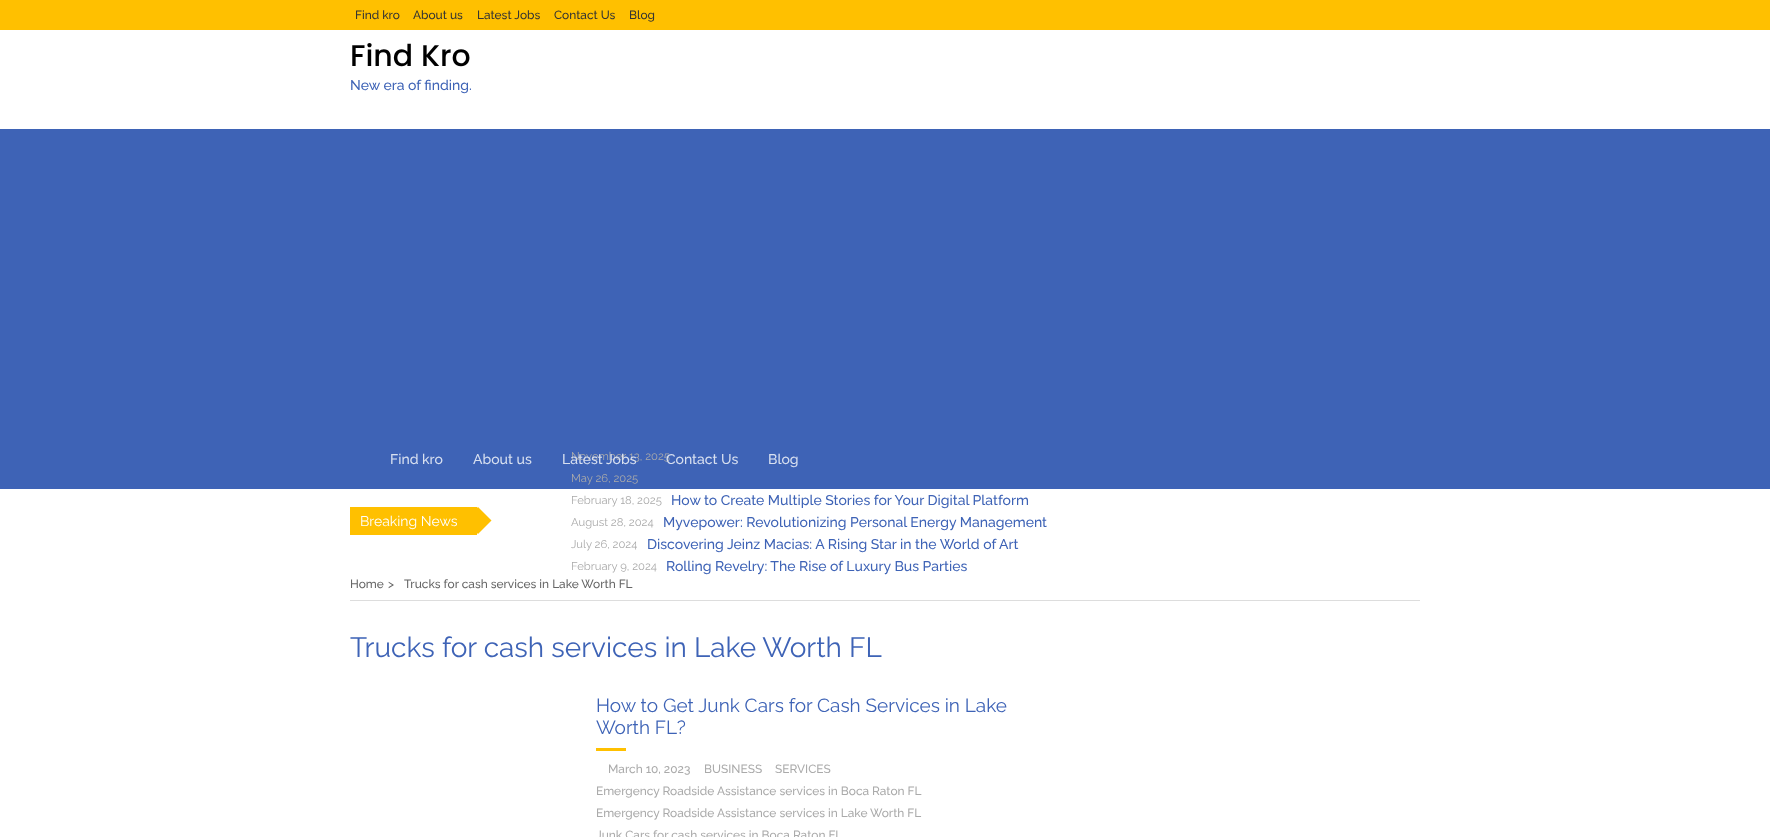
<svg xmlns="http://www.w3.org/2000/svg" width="1770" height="837">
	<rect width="100%" height="100%" fill="#FFFFFF" />
	<rect x="0" y="0" width="1770" height="30" fill="#FFC000" />
	<g font-family="Raleway" font-size="11.9" font-weight="500" fill="#333333">
		<text x="355" y="19">Find kro</text>
		<text x="413" y="19">About us</text>
		<text x="477" y="19">Latest Jobs</text>
		<text x="554" y="19">Contact Us</text>
		<text x="629" y="19">Blog</text>
	</g>
	<text x="350" y="66" font-family="Poppins" font-size="30" font-weight="500" fill="#000000">Find Kro</text>
	<text x="350" y="90" font-family="Raleway" font-size="14" font-weight="500" fill="#3E63B6">New era of finding.</text>
	<rect x="0" y="129" width="1770" height="360" fill="#3E63B6" />
	<g font-family="Raleway" font-size="14" font-weight="500" fill="#D8E0F0">
		<text x="390" y="464">Find kro</text>
		<text x="473" y="464">About us</text>
	</g>
	<text x="571" y="460" font-family="Raleway" font-size="11.25" fill="#AAAAAA">November 13, 2025</text>
	<g font-family="Raleway" font-size="14" font-weight="500" fill="#D8E0F0">
		<text x="562" y="464">Latest Jobs</text>
		<text x="666" y="464">Contact Us</text>
		<text x="768" y="464">Blog</text>
	</g>
	<rect x="350" y="507" width="127" height="28" fill="#FFC000" />
	<text x="360" y="526" font-family="Raleway" font-size="14" fill="#FFFFFF">Breaking News</text>
	<path d="M464.5 520.5L478 507L491.5 520.5L478 534Z" fill="#FFC000" />
	<g font-family="Raleway" font-size="11.25" fill="#AAAAAA">
		<text x="571" y="482">May 26, 2025</text>
		<text x="571" y="504">February 18, 2025</text>
	</g>
	<text x="671" y="505" font-family="Raleway" font-size="14" font-weight="500" fill="#3E63B6">How to Create Multiple Stories for Your Digital Platform</text>
	<text x="571" y="526" font-family="Raleway" font-size="11.25" fill="#AAAAAA">August 28, 2024</text>
	<text x="663" y="527" font-family="Raleway" font-size="14" font-weight="500" fill="#3E63B6">Myvepower: Revolutionizing Personal Energy Management</text>
	<text x="571" y="548" font-family="Raleway" font-size="11.25" fill="#AAAAAA">July 26, 2024</text>
	<text x="647" y="549" font-family="Raleway" font-size="14" font-weight="500" fill="#3E63B6">Discovering Jeinz Macias: A Rising Star in the World of Art</text>
	<text x="571" y="570" font-family="Raleway" font-size="11.25" fill="#AAAAAA">February 9, 2024</text>
	<text x="666" y="571" font-family="Raleway" font-size="14" font-weight="500" fill="#3E63B6">Rolling Revelry: The Rise of Luxury Bus Parties</text>
	<rect x="350" y="600" width="1070" height="1" fill="#DDDDDD" />
	<g font-family="Raleway" font-size="11.9" font-weight="500" fill="#666666">
		<text x="350" y="588">Home</text>
		<text x="388" y="588">&gt;</text>
		<text x="404" y="588">Trucks for cash services in Lake Worth FL</text>
	</g>
	<text x="350" y="657" font-family="Raleway" font-size="28" fill="#3E63B6">Trucks for cash services in Lake Worth FL</text>
	<g font-family="Raleway" font-size="19" fill="#3E63B6">
		<text x="596" y="712">How to Get Junk Cars for Cash Services in Lake</text>
		<text x="596" y="734">Worth FL?</text>
	</g>
	<rect x="596" y="748" width="30" height="3" fill="#FFC000" />
	<g font-family="Raleway" font-size="11.9" font-weight="500" fill="#AAAAAA">
		<text x="608" y="773">March 10, 2023</text>
		<text x="704" y="773">BUSINESS</text>
		<text x="775" y="773">SERVICES</text>
		<text x="596" y="795">Emergency Roadside Assistance services in Boca Raton FL</text>
		<text x="596" y="817">Emergency Roadside Assistance services in Lake Worth FL</text>
		<text x="596" y="839">Junk Cars for cash services in Boca Raton FL</text>
	</g>
</svg>
